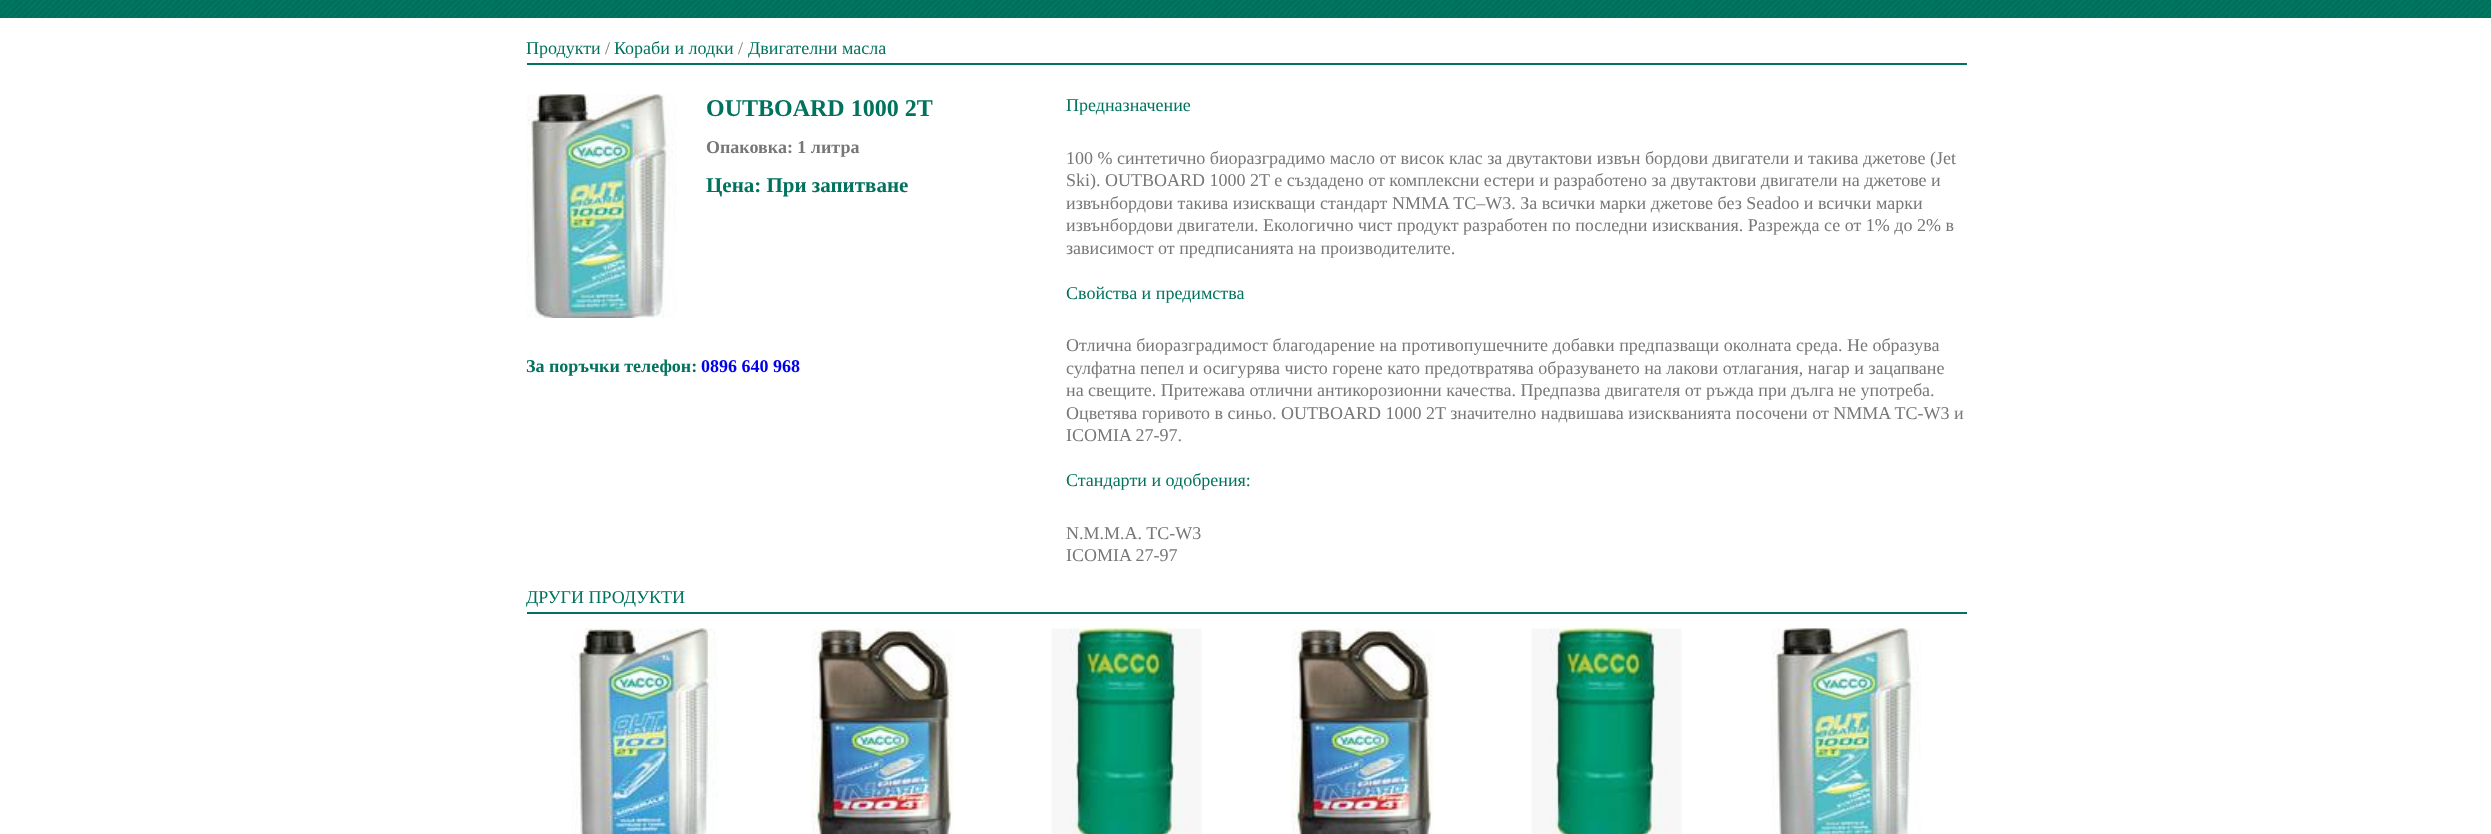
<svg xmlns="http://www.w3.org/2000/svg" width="2491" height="834">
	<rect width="100%" height="100%" fill="#FFFFFF" />
	<image x="0" y="0" width="2491" height="18" href="assets/img1.png" />
	<rect x="527" y="63" width="1440" height="2" fill="#00725E" />
	<text x="526" y="54" font-family="Liberation Serif" font-size="18" fill="#00725D">Продукти</text>
	<text x="605" y="54" font-family="Liberation Serif" font-size="18" fill="#777777">/</text>
	<text x="614" y="54" font-family="Liberation Serif" font-size="18" fill="#00725D">Кораби и лодки</text>
	<text x="738" y="54" font-family="Liberation Serif" font-size="18" fill="#777777">/</text>
	<text x="748" y="54" font-family="Liberation Serif" font-size="18" fill="#00725D">Двигателни масла</text>
	<text x="706" y="116" font-family="Liberation Serif" font-size="24" font-weight="700" fill="#00725D">OUTBOARD 1000 2T</text>
	<text x="706" y="153" font-family="Liberation Serif" font-size="18" font-weight="700" fill="#777777">Опаковка: 1 литра</text>
	<text x="706" y="192" font-family="Liberation Serif" font-size="21" font-weight="700" fill="#00725D">Цена: При запитване</text>
	<text x="1066" y="111" font-family="Liberation Serif" font-size="18" fill="#00725D">Предназначение</text>
	<g font-family="Liberation Serif" font-size="18" fill="#777777">
		<text x="1066" y="164">100 % синтетично биоразградимо масло от висок клас за двутактови извън бордови двигатели и такива джетове (Jet</text>
		<text x="1066" y="186">Ski). OUTBOARD 1000 2T е създадено от комплексни естери и разработено за двутактови двигатели на джетове и</text>
		<text x="1066" y="209">извънбордови такива изискващи стандарт NMMA TC–W3. За всички марки джетове без Seadoo и всички марки</text>
		<text x="1066" y="231">извънбордови двигатели. Екологично чист продукт разработен по последни изисквания. Разрежда се от 1% до 2% в</text>
		<text x="1066" y="254">зависимост от предписанията на производителите.</text>
	</g>
	<text x="1066" y="299" font-family="Liberation Serif" font-size="18" fill="#00725D">Свойства и предимства</text>
	<g font-family="Liberation Serif" font-size="18" fill="#777777">
		<text x="1066" y="351">Отлична биоразградимост благодарение на противопушечните добавки предпазващи околната среда. Не образува</text>
		<text x="1066" y="374">сулфатна пепел и осигурява чисто горене като предотвратява образуването на лакови отлагания, нагар и зацапване</text>
		<text x="1066" y="396">на свещите. Притежава отлични антикорозионни качества. Предпазва двигателя от ръжда при дълга не употреба.</text>
		<text x="1066" y="419">Оцветява горивото в синьо. OUTBOARD 1000 2T значително надвишава изискванията посочени от NMMA TC-W3 и</text>
		<text x="1066" y="441">ICOMIA 27-97.</text>
	</g>
	<text x="1066" y="486" font-family="Liberation Serif" font-size="18" fill="#00725D">Стандарти и одобрения:</text>
	<g font-family="Liberation Serif" font-size="18" fill="#777777">
		<text x="1066" y="539">N.M.M.A. TC-W3</text>
		<text x="1066" y="561">ICOMIA 27-97</text>
	</g>
	<image x="526" y="94" width="151" height="224" href="assets/img2.png" />
	<text x="526" y="372" font-family="Liberation Serif" font-size="18" font-weight="700" fill="#00725D">За поръчки телефон:</text>
	<text x="701" y="372" font-family="Liberation Serif" font-size="18" font-weight="700" fill="#0000EE">0896 640 968</text>
	<rect x="527" y="612" width="1440" height="2" fill="#00725D" />
	<text x="526" y="603" font-family="Liberation Serif" font-size="18" fill="#00725D">ДРУГИ ПРОДУКТИ</text>
	<image x="571" y="628" width="147" height="206" href="assets/img3.png" />
	<image x="811" y="628" width="144" height="206" href="assets/img4.png" />
	<image x="1051" y="628" width="151" height="206" href="assets/img5.png" />
	<image x="1291" y="628" width="144" height="206" href="assets/img4.png" />
	<image x="1531" y="628" width="151" height="206" href="assets/img6.png" />
	<image x="1771" y="628" width="150" height="206" href="assets/img7.png" />
</svg>
